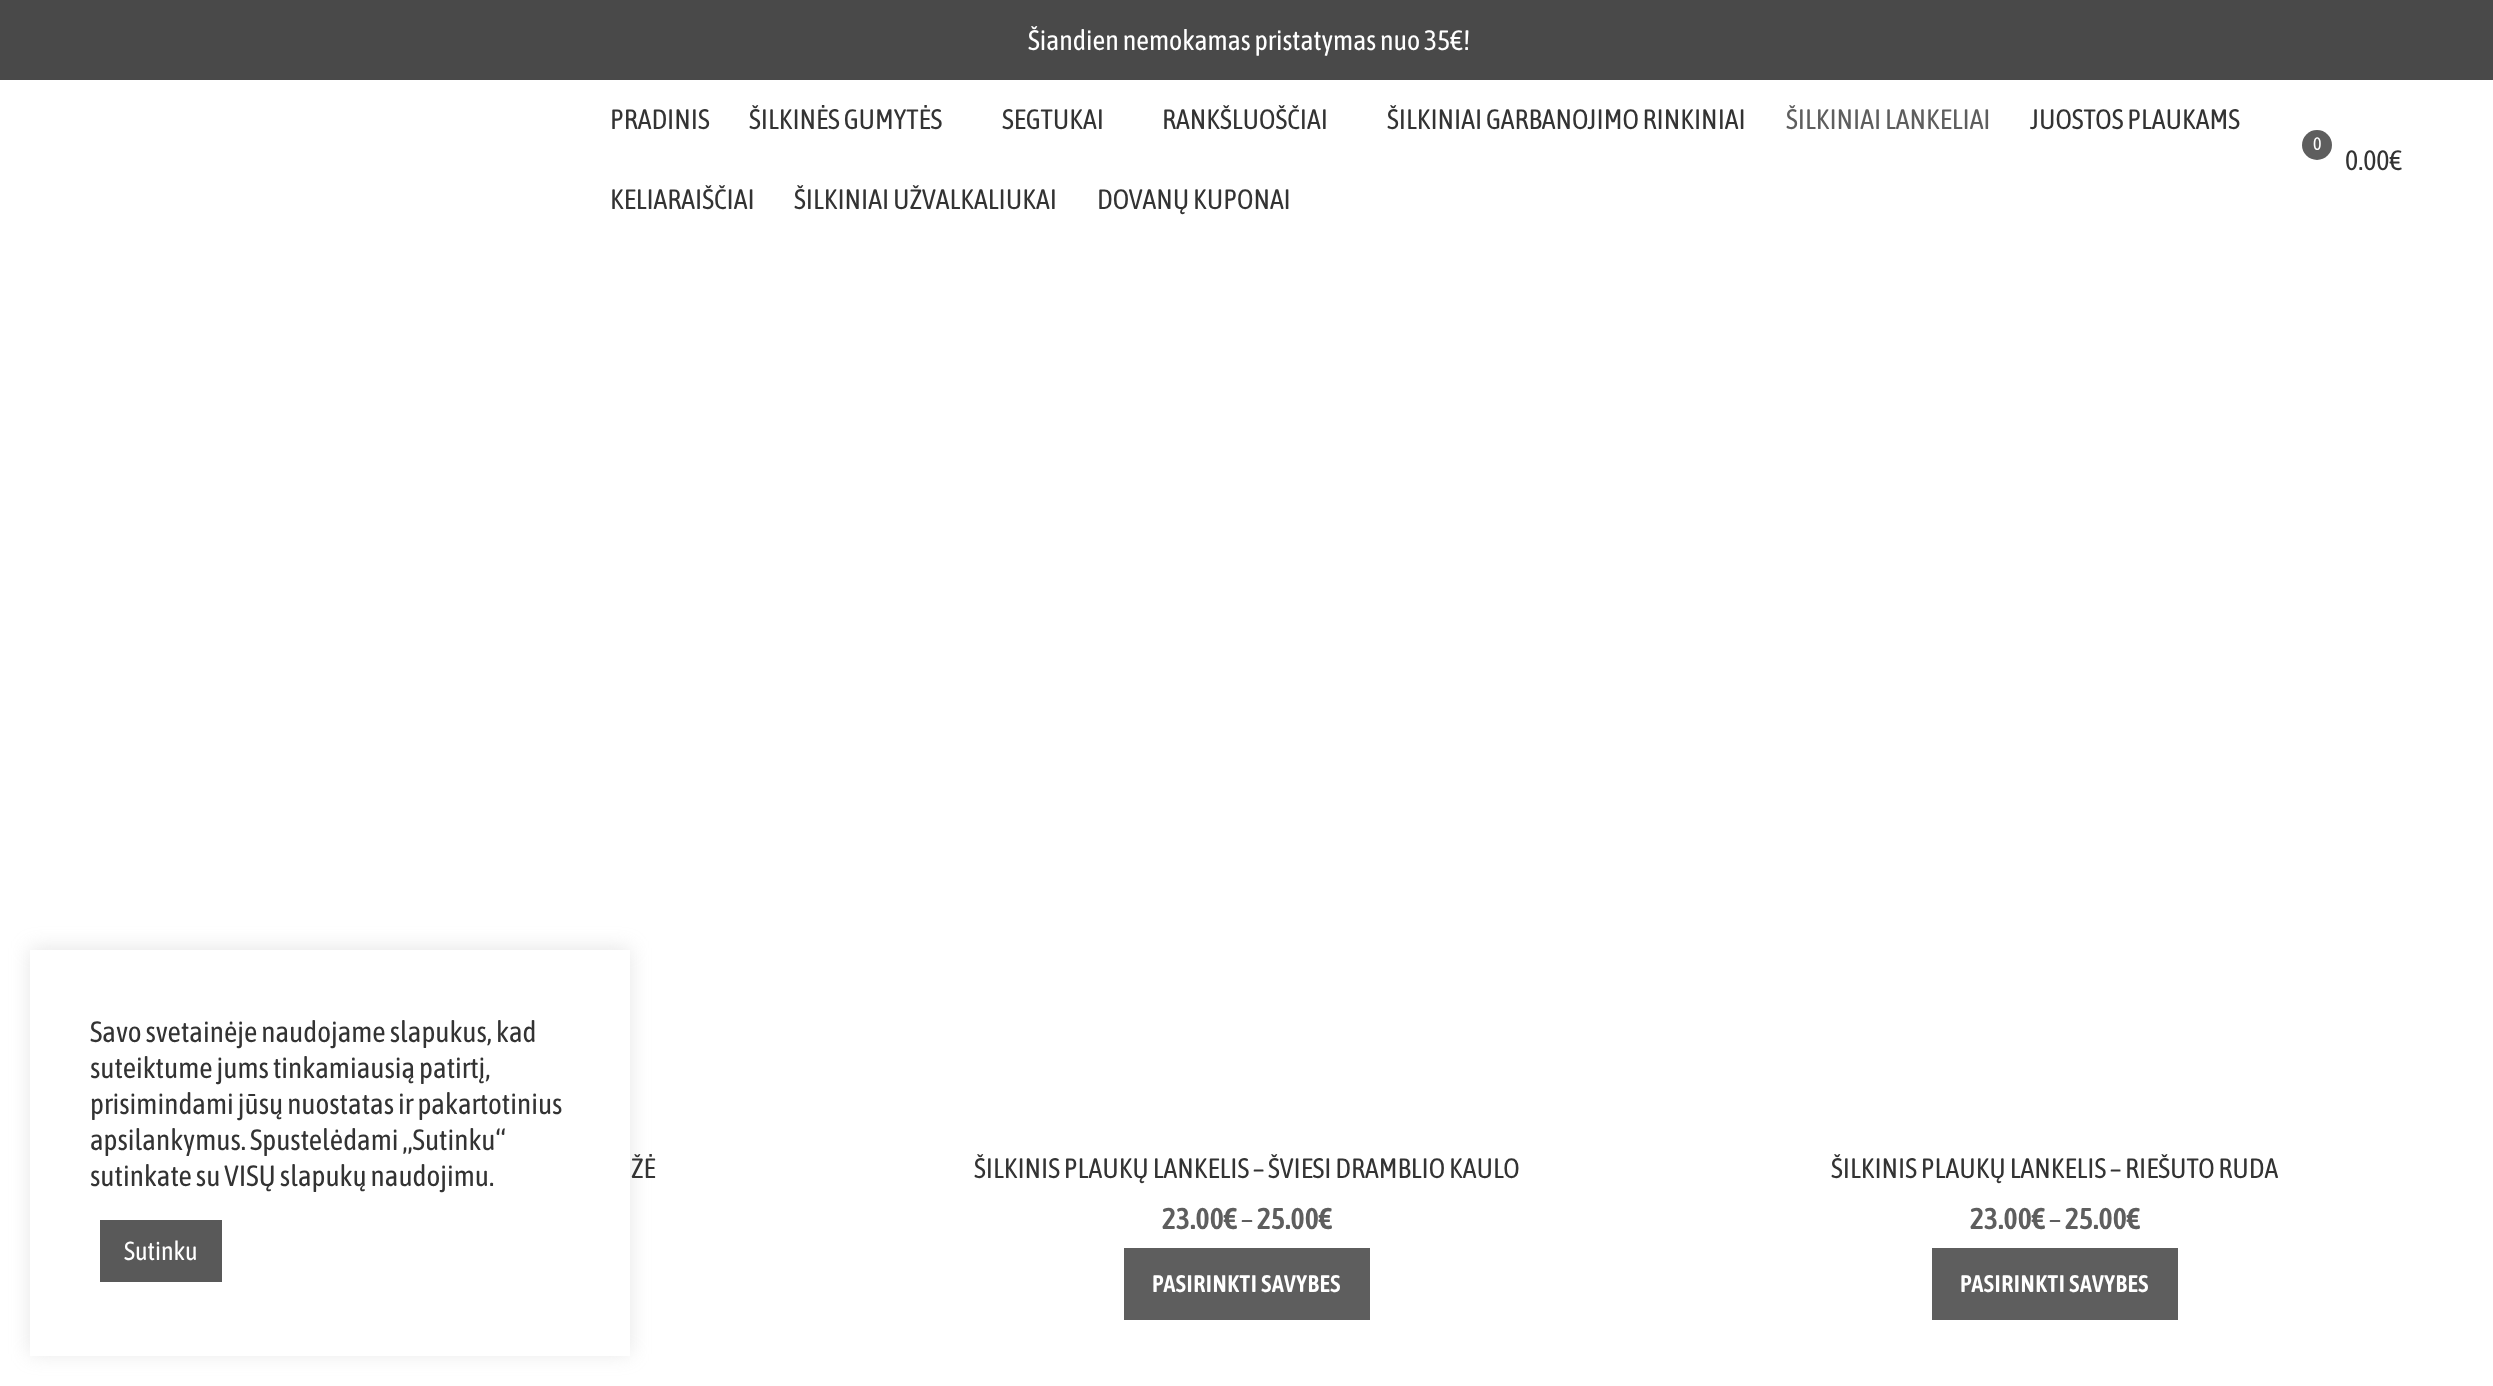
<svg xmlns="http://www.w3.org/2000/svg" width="2493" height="1386">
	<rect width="100%" height="100%" fill="#FFFFFF" />
	<rect x="0" y="0" width="2493" height="80" fill="#494949" />
	<text x="1028" y="50" font-family="Asap Condensed" font-size="28" fill="#FFFFFF">Šiandien nemokamas pristatymas nuo 35€!</text>
	<rect x="30" y="948" width="600" height="406" fill="#ACABAB" fill-opacity="0.3" filter="blur(10px)" />
	<rect x="30" y="950" width="600" height="406" fill="#FFFFFF" />
	<g font-family="Asap Condensed" font-size="29.3" fill="#333333">
		<text x="90" y="1042">Savo svetainėje naudojame slapukus, kad</text>
		<text x="90" y="1078">suteiktume jums tinkamiausią patirtį,</text>
		<text x="90" y="1114">prisimindami jūsų nuostatas ir pakartotinius</text>
		<text x="90" y="1150">apsilankymus. Spustelėdami „Sutinku“</text>
		<text x="90" y="1186">sutinkate su VISŲ slapukų naudojimu.</text>
	</g>
	<rect x="100" y="1220" width="122" height="62" fill="#595959" />
	<text x="124" y="1260" font-family="Asap Condensed" font-size="26" fill="#FFFFFF">Sutinku</text>
	<g font-family="Asap Condensed" font-size="28" fill="#333333">
		<text x="610" y="129">PRADINIS</text>
		<text x="749" y="129">ŠILKINĖS GUMYTĖS</text>
		<text x="1002" y="129">SEGTUKAI</text>
		<text x="1162" y="129">RANKŠLUOŠČIAI</text>
		<text x="1387" y="129">ŠILKINIAI GARBANOJIMO RINKINIAI</text>
	</g>
	<text x="1786" y="129" font-family="Asap Condensed" font-size="28" fill="#5E5E5E">ŠILKINIAI LANKELIAI</text>
	<g font-family="Asap Condensed" font-size="28" fill="#333333">
		<text x="2030" y="129">JUOSTOS PLAUKAMS</text>
		<text x="610" y="209">KELIARAIŠČIAI</text>
		<text x="794" y="209">ŠILKINIAI UŽVALKALIUKAI</text>
		<text x="1097" y="209">DOVANŲ KUPONAI</text>
	</g>
	<circle cx="2317" cy="145" r="15" fill="#5E5E5E" />
	<text x="2313" y="150" font-family="Asap Condensed" font-size="18" fill="#FFFFFF">0</text>
	<g font-family="Asap Condensed" font-size="28" fill="#333333">
		<text x="2345" y="170">0.00€</text>
		<text x="631" y="1178">ŽĖ</text>
		<text x="974" y="1178">ŠILKINIS PLAUKŲ LANKELIS – ŠVIESI DRAMBLIO KAULO</text>
	</g>
	<text x="1162" y="1229" font-family="Asap Condensed" font-size="30" font-weight="600" fill="#5E5E5E">23.00€</text>
	<text x="1241" y="1229" font-family="Asap Condensed" font-size="30" fill="#5E5E5E">–</text>
	<text x="1257" y="1229" font-family="Asap Condensed" font-size="30" font-weight="600" fill="#5E5E5E">25.00€</text>
	<rect x="1124" y="1248" width="246" height="72" fill="#5E5E5E" />
	<text x="1152" y="1292" font-family="Asap Condensed" font-size="24" font-weight="600" letter-spacing="0.6" fill="#FFFFFF">PASIRINKTI SAVYBES</text>
	<text x="1831" y="1178" font-family="Asap Condensed" font-size="28" fill="#333333">ŠILKINIS PLAUKŲ LANKELIS – RIEŠUTO RUDA</text>
	<text x="1970" y="1229" font-family="Asap Condensed" font-size="30" font-weight="600" fill="#5E5E5E">23.00€</text>
	<text x="2049" y="1229" font-family="Asap Condensed" font-size="30" fill="#5E5E5E">–</text>
	<text x="2065" y="1229" font-family="Asap Condensed" font-size="30" font-weight="600" fill="#5E5E5E">25.00€</text>
	<rect x="1932" y="1248" width="246" height="72" fill="#5E5E5E" />
	<text x="1960" y="1292" font-family="Asap Condensed" font-size="24" font-weight="600" letter-spacing="0.6" fill="#FFFFFF">PASIRINKTI SAVYBES</text>
</svg>
